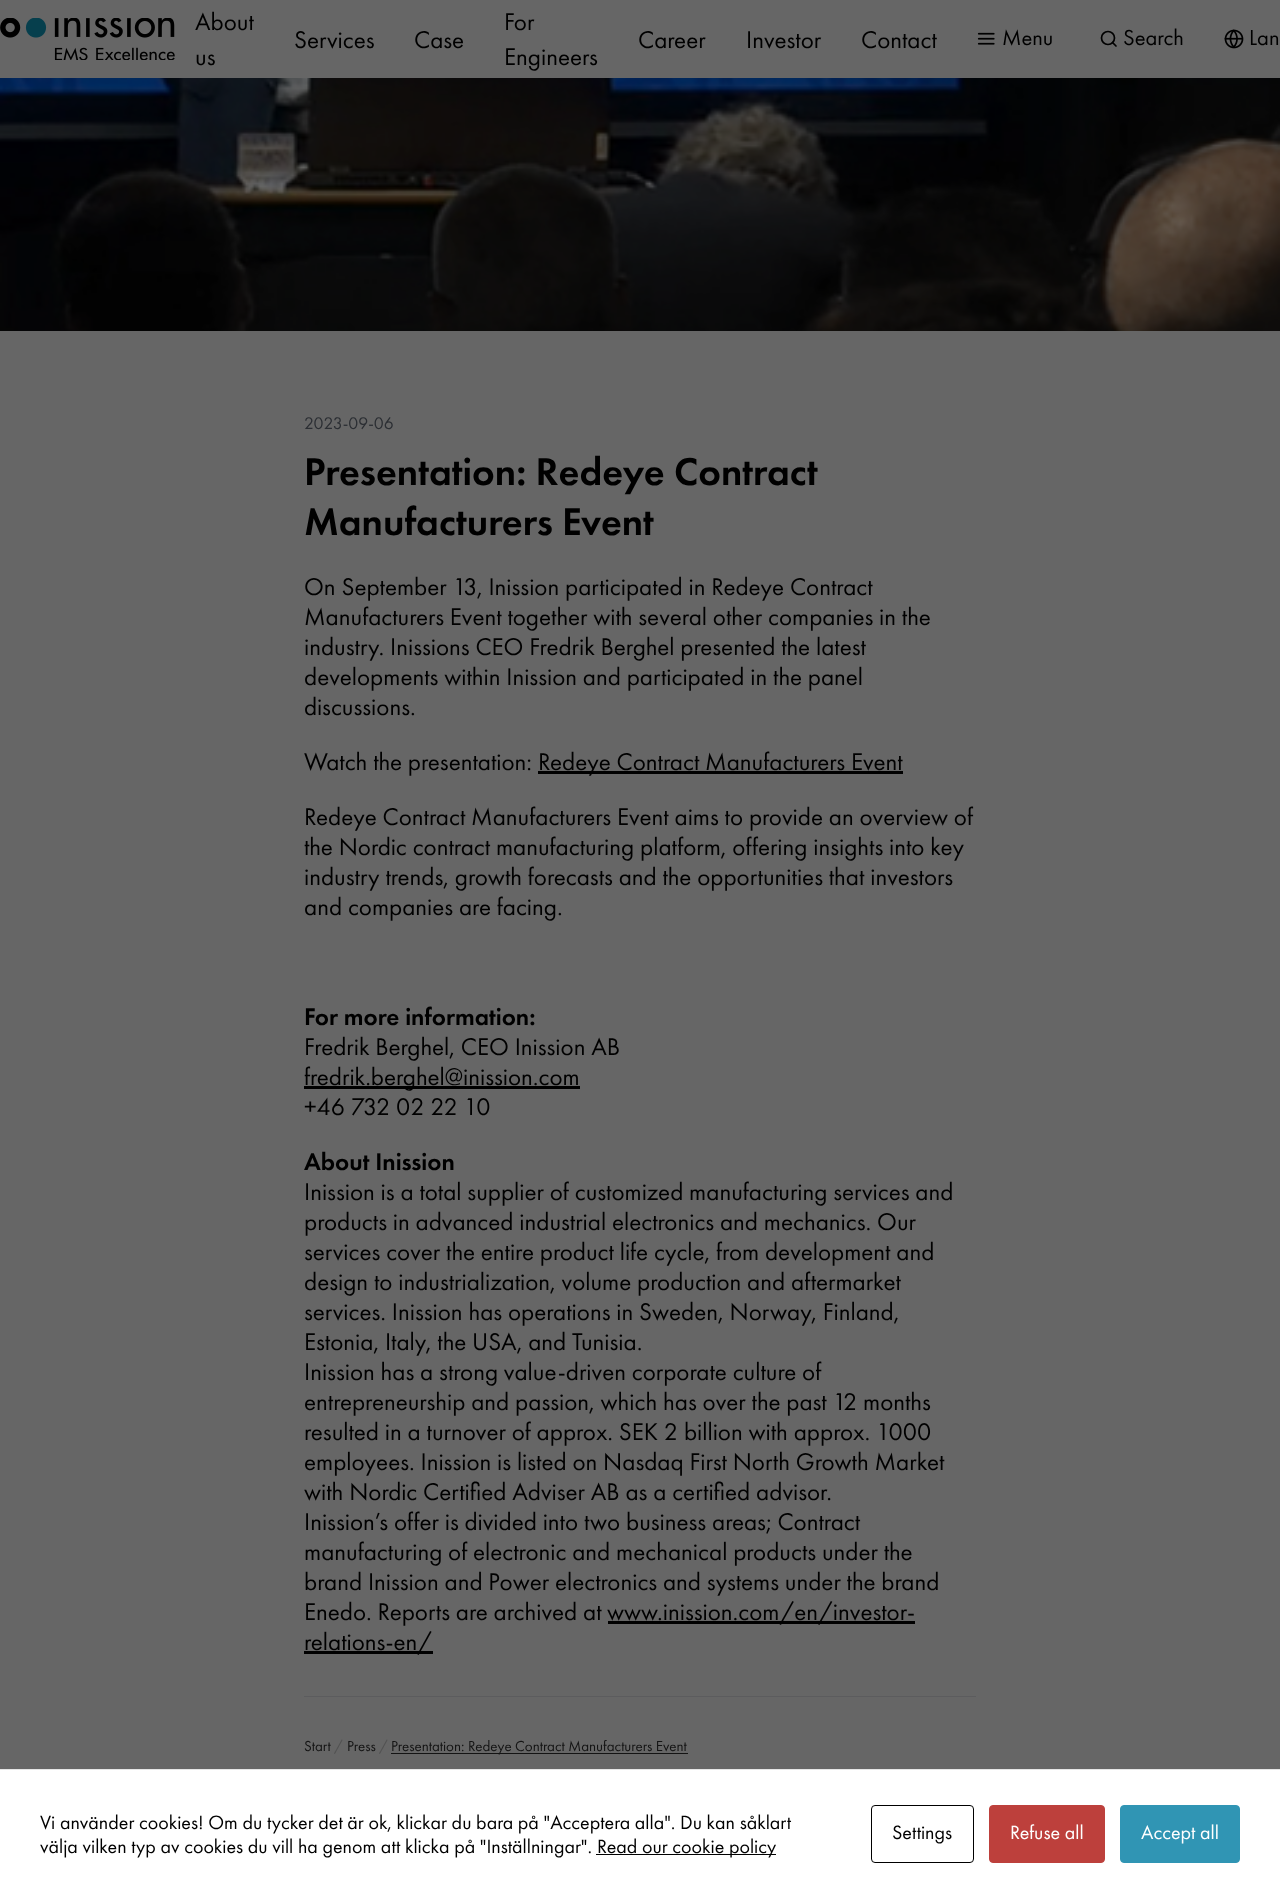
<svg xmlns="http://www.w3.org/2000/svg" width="1280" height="1897">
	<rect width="100%" height="100%" fill="#666666" />
	<image x="0" y="18" width="175" height="42" href="assets/img1.png" />
	<g font-family="Futura PT" font-size="25" fill="#000000">
		<text x="195" y="30">About</text>
		<text x="195" y="65">us</text>
		<text x="294" y="48">Services</text>
		<text x="414" y="48">Case</text>
		<text x="504" y="30">For</text>
		<text x="504" y="65">Engineers</text>
		<text x="638" y="48">Career</text>
		<text x="746" y="48">Investor</text>
		<text x="861" y="48">Contact</text>
	</g>
	<image x="977" y="32" width="18" height="13" href="assets/img2.png" />
	<text x="1002" y="45" font-family="Futura PT" font-size="22.5" fill="#000000">Menu</text>
	<circle cx="1108" cy="38" r="6.5" fill="none" stroke="#000000" stroke-width="1.7" />
	<path d="M1116 46L1112.5 42.5" fill="none" stroke="#000000" stroke-width="1.7" stroke-linecap="round" stroke-linejoin="round" />
	<text x="1123" y="45" font-family="Futura PT" font-size="22.5" fill="#000000">Search</text>
	<image x="1224" y="29" width="20" height="20" href="assets/img3.png" />
	<text x="1249" y="45" font-family="Futura PT" font-size="22.5" fill="#000000">Lan</text>
	<image x="0" y="78" width="1280" height="253" href="assets/img4.png" />
	<text x="304" y="429" font-family="Futura PT" font-size="17.5" fill="#2B2E33">2023-09-06</text>
	<g font-family="Futura PT" font-size="40" font-weight="500" fill="#000000">
		<text x="304" y="485">Presentation: Redeye Contract</text>
		<text x="304" y="535">Manufacturers Event</text>
	</g>
	<g font-family="Futura PT" font-size="25" fill="#000000">
		<text x="304" y="595">On September 13, Inission participated in Redeye Contract</text>
		<text x="304" y="625">Manufacturers Event together with several other companies in the</text>
		<text x="304" y="655">industry. Inissions CEO Fredrik Berghel presented the latest</text>
		<text x="304" y="685">developments within Inission and participated in the panel</text>
		<text x="304" y="715">discussions.</text>
		<text x="304" y="770">Watch the presentation:</text>
	</g>
	<rect x="538" y="771" width="365" height="3" fill="#000000" />
	<g font-family="Futura PT" font-size="25" fill="#000000">
		<text x="538" y="770">Redeye Contract Manufacturers Event</text>
		<text x="304" y="825">Redeye Contract Manufacturers Event aims to provide an overview of</text>
		<text x="304" y="855">the Nordic contract manufacturing platform, offering insights into key</text>
		<text x="304" y="885">industry trends, growth forecasts and the opportunities that investors</text>
		<text x="304" y="915">and companies are facing.</text>
	</g>
	<text x="304" y="1025" font-family="Futura PT" font-size="25" font-weight="500" fill="#000000">For more information:</text>
	<text x="304" y="1055" font-family="Futura PT" font-size="25" fill="#000000">Fredrik Berghel, CEO Inission AB</text>
	<rect x="304" y="1086" width="276" height="3" fill="#000000" />
	<g font-family="Futura PT" font-size="25" fill="#000000">
		<text x="304" y="1085">fredrik.berghel@inission.com</text>
		<text x="304" y="1115">+46 732 02 22 10</text>
	</g>
	<text x="304" y="1170" font-family="Futura PT" font-size="25" font-weight="500" fill="#000000">About Inission</text>
	<g font-family="Futura PT" font-size="25" fill="#000000">
		<text x="304" y="1200">Inission is a total supplier of customized manufacturing services and</text>
		<text x="304" y="1230">products in advanced industrial electronics and mechanics. Our</text>
		<text x="304" y="1260">services cover the entire product life cycle, from development and</text>
		<text x="304" y="1290">design to industrialization, volume production and aftermarket</text>
		<text x="304" y="1320">services. Inission has operations in Sweden, Norway, Finland,</text>
		<text x="304" y="1350">Estonia, Italy, the USA, and Tunisia.</text>
		<text x="304" y="1380">Inission has a strong value-driven corporate culture of</text>
		<text x="304" y="1410">entrepreneurship and passion, which has over the past 12 months</text>
		<text x="304" y="1440">resulted in a turnover of approx. SEK 2 billion with approx. 1000</text>
		<text x="304" y="1470">employees. Inission is listed on Nasdaq First North Growth Market</text>
		<text x="304" y="1500">with Nordic Certified Adviser AB as a certified advisor.</text>
		<text x="304" y="1530">Inission’s offer is divided into two business areas; Contract</text>
		<text x="304" y="1560">manufacturing of electronic and mechanical products under the</text>
		<text x="304" y="1590">brand Inission and Power electronics and systems under the brand</text>
		<text x="304" y="1620">Enedo. Reports are archived at</text>
	</g>
	<rect x="608" y="1621" width="307" height="3" fill="#000000" />
	<text x="607" y="1620" font-family="Futura PT" font-size="25" fill="#000000">www.inission.com/en/investor-</text>
	<rect x="304" y="1651" width="129" height="3" fill="#000000" />
	<text x="304" y="1650" font-family="Futura PT" font-size="25" fill="#000000">relations-en/</text>
	<rect x="304" y="1696" width="672" height="1" fill="#5C5C5E" />
	<text x="304" y="1751" font-family="Futura PT" font-size="15" fill="#141414">Start</text>
	<text x="334" y="1751" font-family="Futura PT" font-size="15" fill="#525252">/</text>
	<text x="347" y="1751" font-family="Futura PT" font-size="15" fill="#141414">Press</text>
	<text x="379" y="1751" font-family="Futura PT" font-size="15" fill="#525252">/</text>
	<rect x="391" y="1753" width="297" height="1" fill="#141414" />
	<text x="391" y="1751" font-family="Futura PT" font-size="15" fill="#141414">Presentation: Redeye Contract Manufacturers Event</text>
	<rect x="0" y="1770" width="1280" height="127" fill="#FFFFFF" />
	<rect x="0" y="1769" width="1280" height="1" fill="#E6E6E6" />
	<g font-family="Futura PT" font-size="20" fill="#000000">
		<text x="40" y="1829">Vi använder cookies! Om du tycker det är ok, klickar du bara på "Acceptera alla". Du kan såklart</text>
		<text x="40" y="1853">välja vilken typ av cookies du vill ha genom att klicka på "Inställningar".</text>
	</g>
	<rect x="596" y="1854" width="180" height="1" fill="#000000" />
	<text x="597" y="1853" font-family="Futura PT" font-size="20" fill="#000000">Read our cookie policy</text>
	<rect x="871.5" y="1805.5" width="102" height="57" rx="3.5" fill="none" stroke="#000000" />
	<text x="892" y="1839" font-family="Futura PT" font-size="20" fill="#000000">Settings</text>
	<rect x="989.5" y="1805.5" width="115" height="57" rx="3.5" fill="#BD403C" stroke="#BD403C" />
	<text x="1010" y="1839" font-family="Futura PT" font-size="20" fill="#FFFFFF">Refuse all</text>
	<rect x="1120.5" y="1805.5" width="119" height="57" rx="3.5" fill="#3095B4" stroke="#3095B4" />
	<text x="1141" y="1839" font-family="Futura PT" font-size="20" fill="#FFFFFF">Accept all</text>
</svg>
